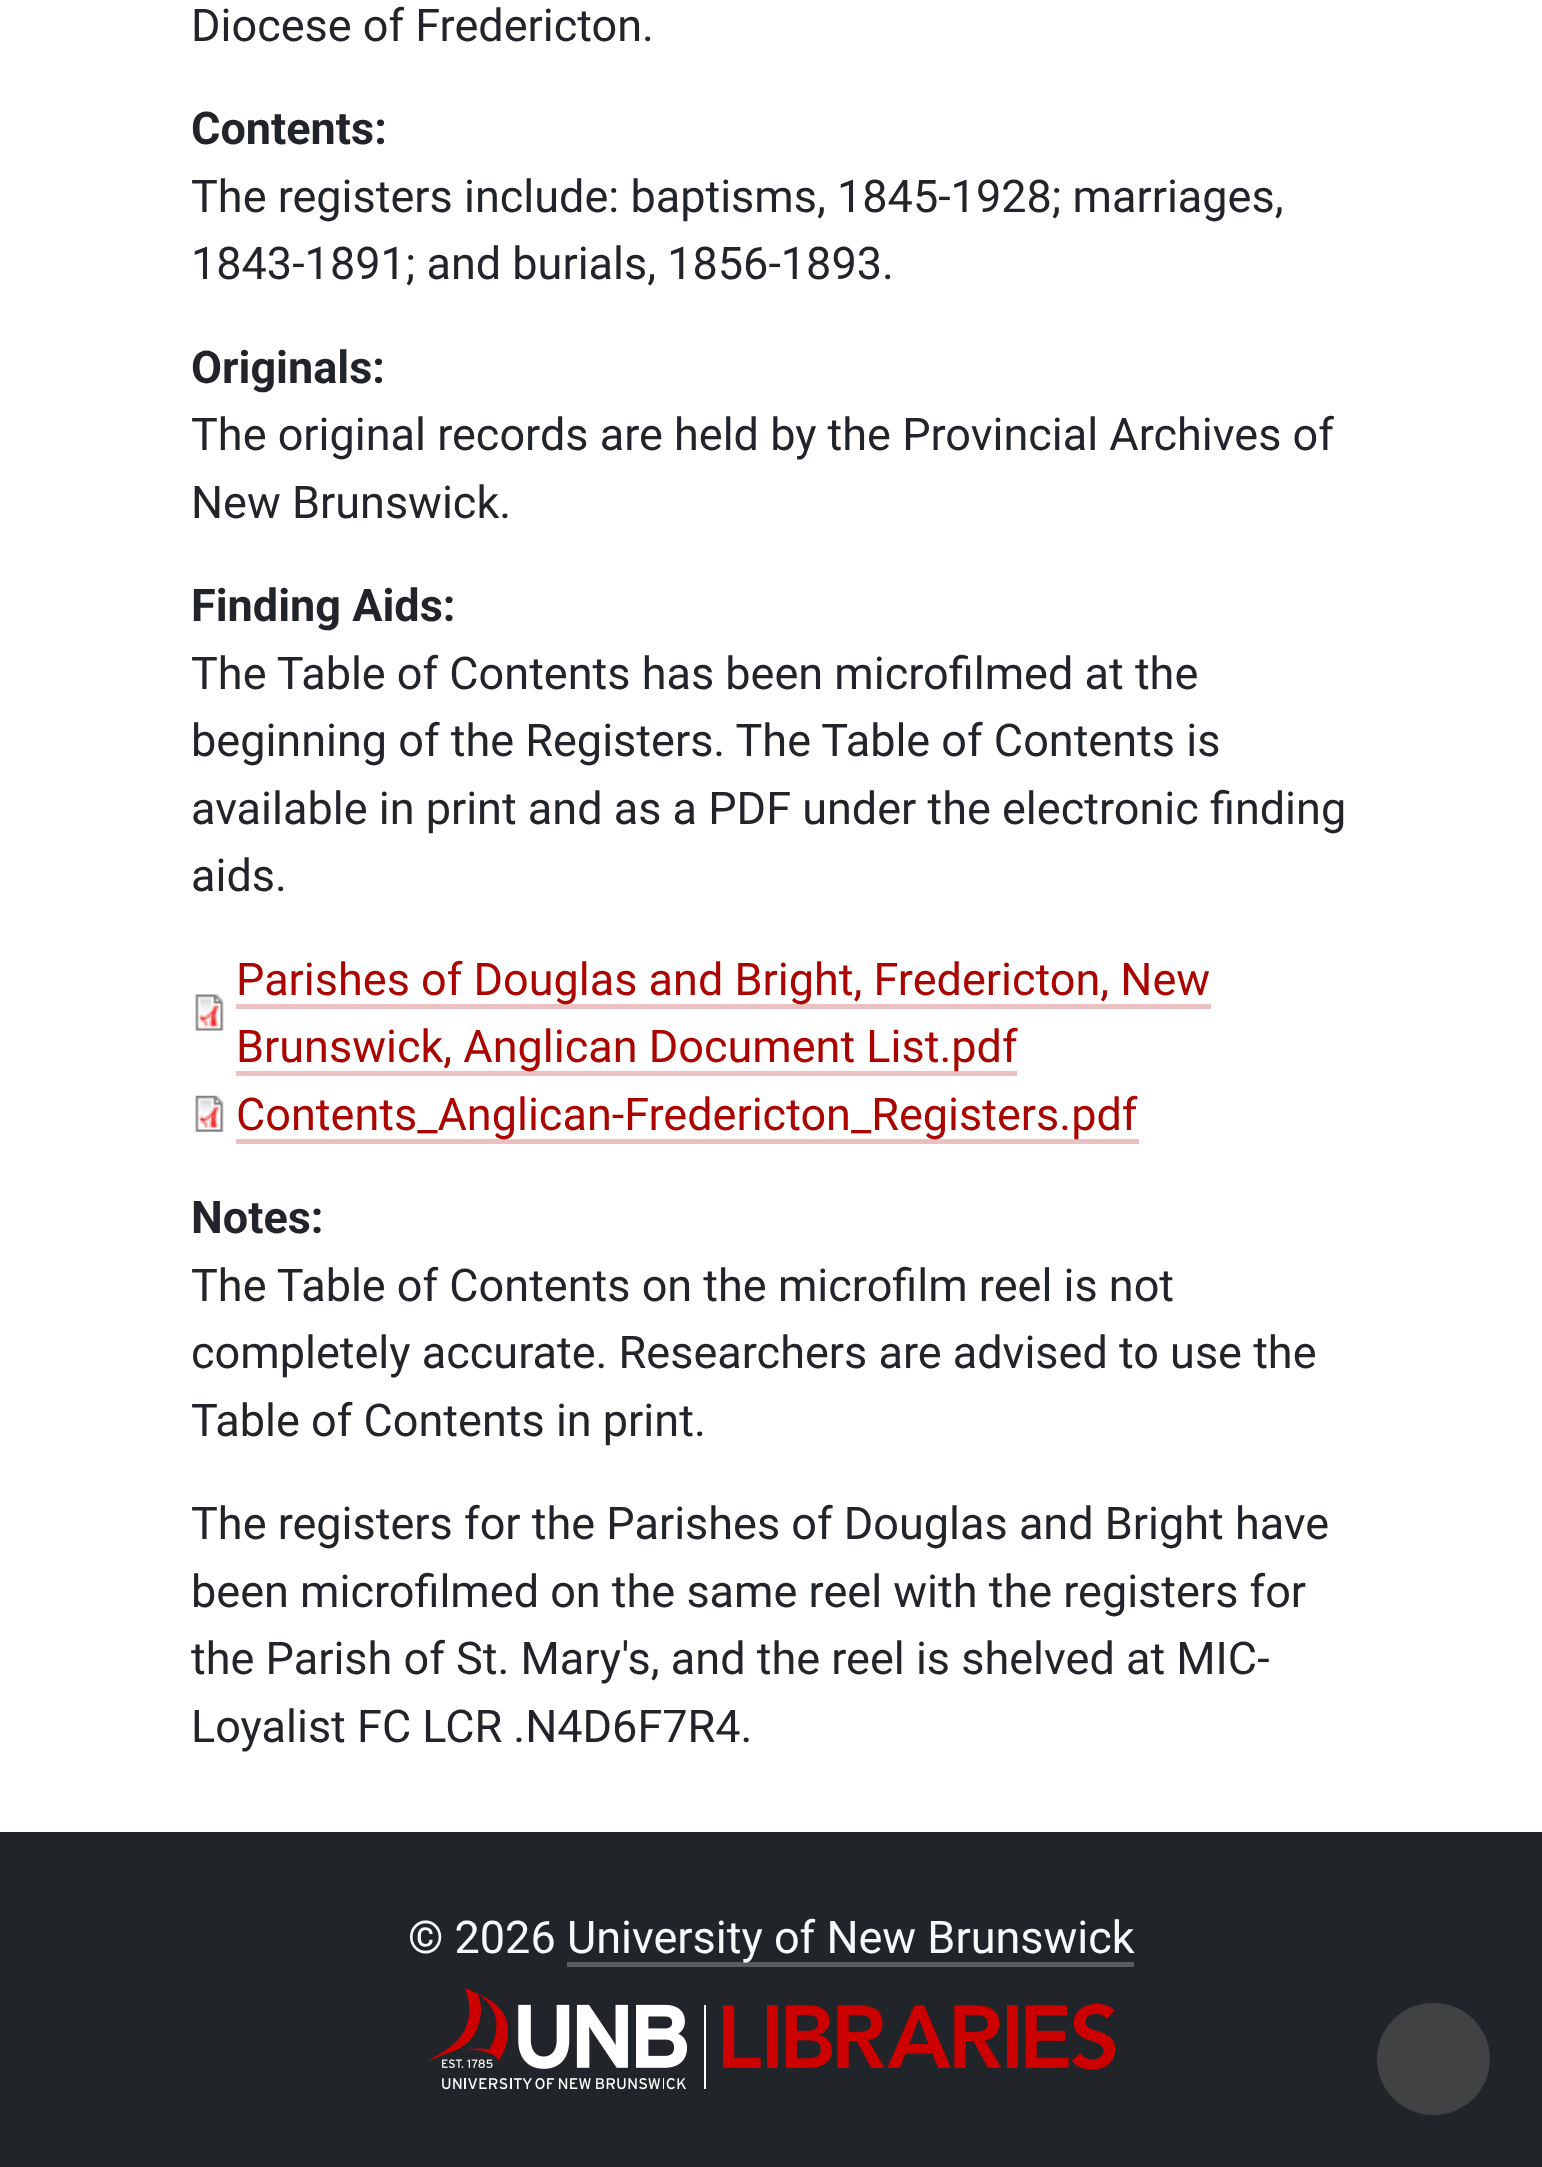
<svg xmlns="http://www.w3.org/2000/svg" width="1542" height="2167">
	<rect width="100%" height="100%" fill="#FFFFFF" />
	<text x="191" y="41" font-family="Roboto" font-size="45" fill="#212529">Diocese of Fredericton.</text>
	<text x="191" y="144" font-family="Roboto" font-size="45" font-weight="700" fill="#212529">Contents:</text>
	<g font-family="Roboto" font-size="45" fill="#212529">
		<text x="191" y="212">The registers include: baptisms, 1845-1928; marriages,</text>
		<text x="191" y="279">1843-1891; and burials, 1856-1893.</text>
	</g>
	<text x="191" y="383" font-family="Roboto" font-size="45" font-weight="700" fill="#212529">Originals:</text>
	<g font-family="Roboto" font-size="45" fill="#212529">
		<text x="191" y="450">The original records are held by the Provincial Archives of</text>
		<text x="191" y="518">New Brunswick.</text>
	</g>
	<text x="191" y="621" font-family="Roboto" font-size="45" font-weight="700" fill="#212529">Finding Aids:</text>
	<g font-family="Roboto" font-size="45" fill="#212529">
		<text x="191" y="689">The Table of Contents has been microfilmed at the</text>
		<text x="191" y="756">beginning of the Registers. The Table of Contents is</text>
		<text x="191" y="824">available in print and as a PDF under the electronic finding</text>
		<text x="191" y="891">aids.</text>
	</g>
	<image x="195" y="994" width="29" height="37" href="assets/img1.png" />
	<rect x="236" y="1004" width="975" height="5" fill="#EAC1C0" />
	<text x="236" y="995" font-family="Roboto" font-size="45" fill="#AA0501">Parishes of Douglas and Bright, Fredericton, New</text>
	<rect x="236" y="1071" width="781" height="5" fill="#EAC1C0" />
	<text x="236" y="1062" font-family="Roboto" font-size="45" fill="#AA0501">Brunswick, Anglican Document List.pdf</text>
	<image x="195" y="1095" width="29" height="37" href="assets/img2.png" />
	<rect x="236" y="1139" width="903" height="5" fill="#EAC1C0" />
	<text x="236" y="1130" font-family="Roboto" font-size="45" fill="#AA0501">Contents_Anglican-Fredericton_Registers.pdf</text>
	<text x="191" y="1233" font-family="Roboto" font-size="45" font-weight="700" fill="#212529">Notes:</text>
	<g font-family="Roboto" font-size="45" fill="#212529">
		<text x="191" y="1301">The Table of Contents on the microfilm reel is not</text>
		<text x="191" y="1368">completely accurate. Researchers are advised to use the</text>
		<text x="191" y="1436">Table of Contents in print.</text>
		<text x="191" y="1539">The registers for the Parishes of Douglas and Bright have</text>
		<text x="191" y="1607">been microfilmed on the same reel with the registers for</text>
		<text x="191" y="1674">the Parish of St. Mary's, and the reel is shelved at MIC-</text>
		<text x="191" y="1742">Loyalist FC LCR .N4D6F7R4.</text>
	</g>
	<rect x="0" y="1832" width="1542" height="335" fill="#212529" />
	<text x="408" y="1953" font-family="Roboto" font-size="45" fill="#F8F9FA">© 2026</text>
	<rect x="567" y="1962" width="567" height="5" fill="#595C5F" />
	<text x="567" y="1953" font-family="Roboto" font-size="45" fill="#F8F9FA">University of New Brunswick</text>
	<image x="428" y="1988" width="688" height="102" href="assets/img3.png" />
	<rect x="1377" y="2003" width="113" height="112" rx="56" fill="#404243" />
</svg>
